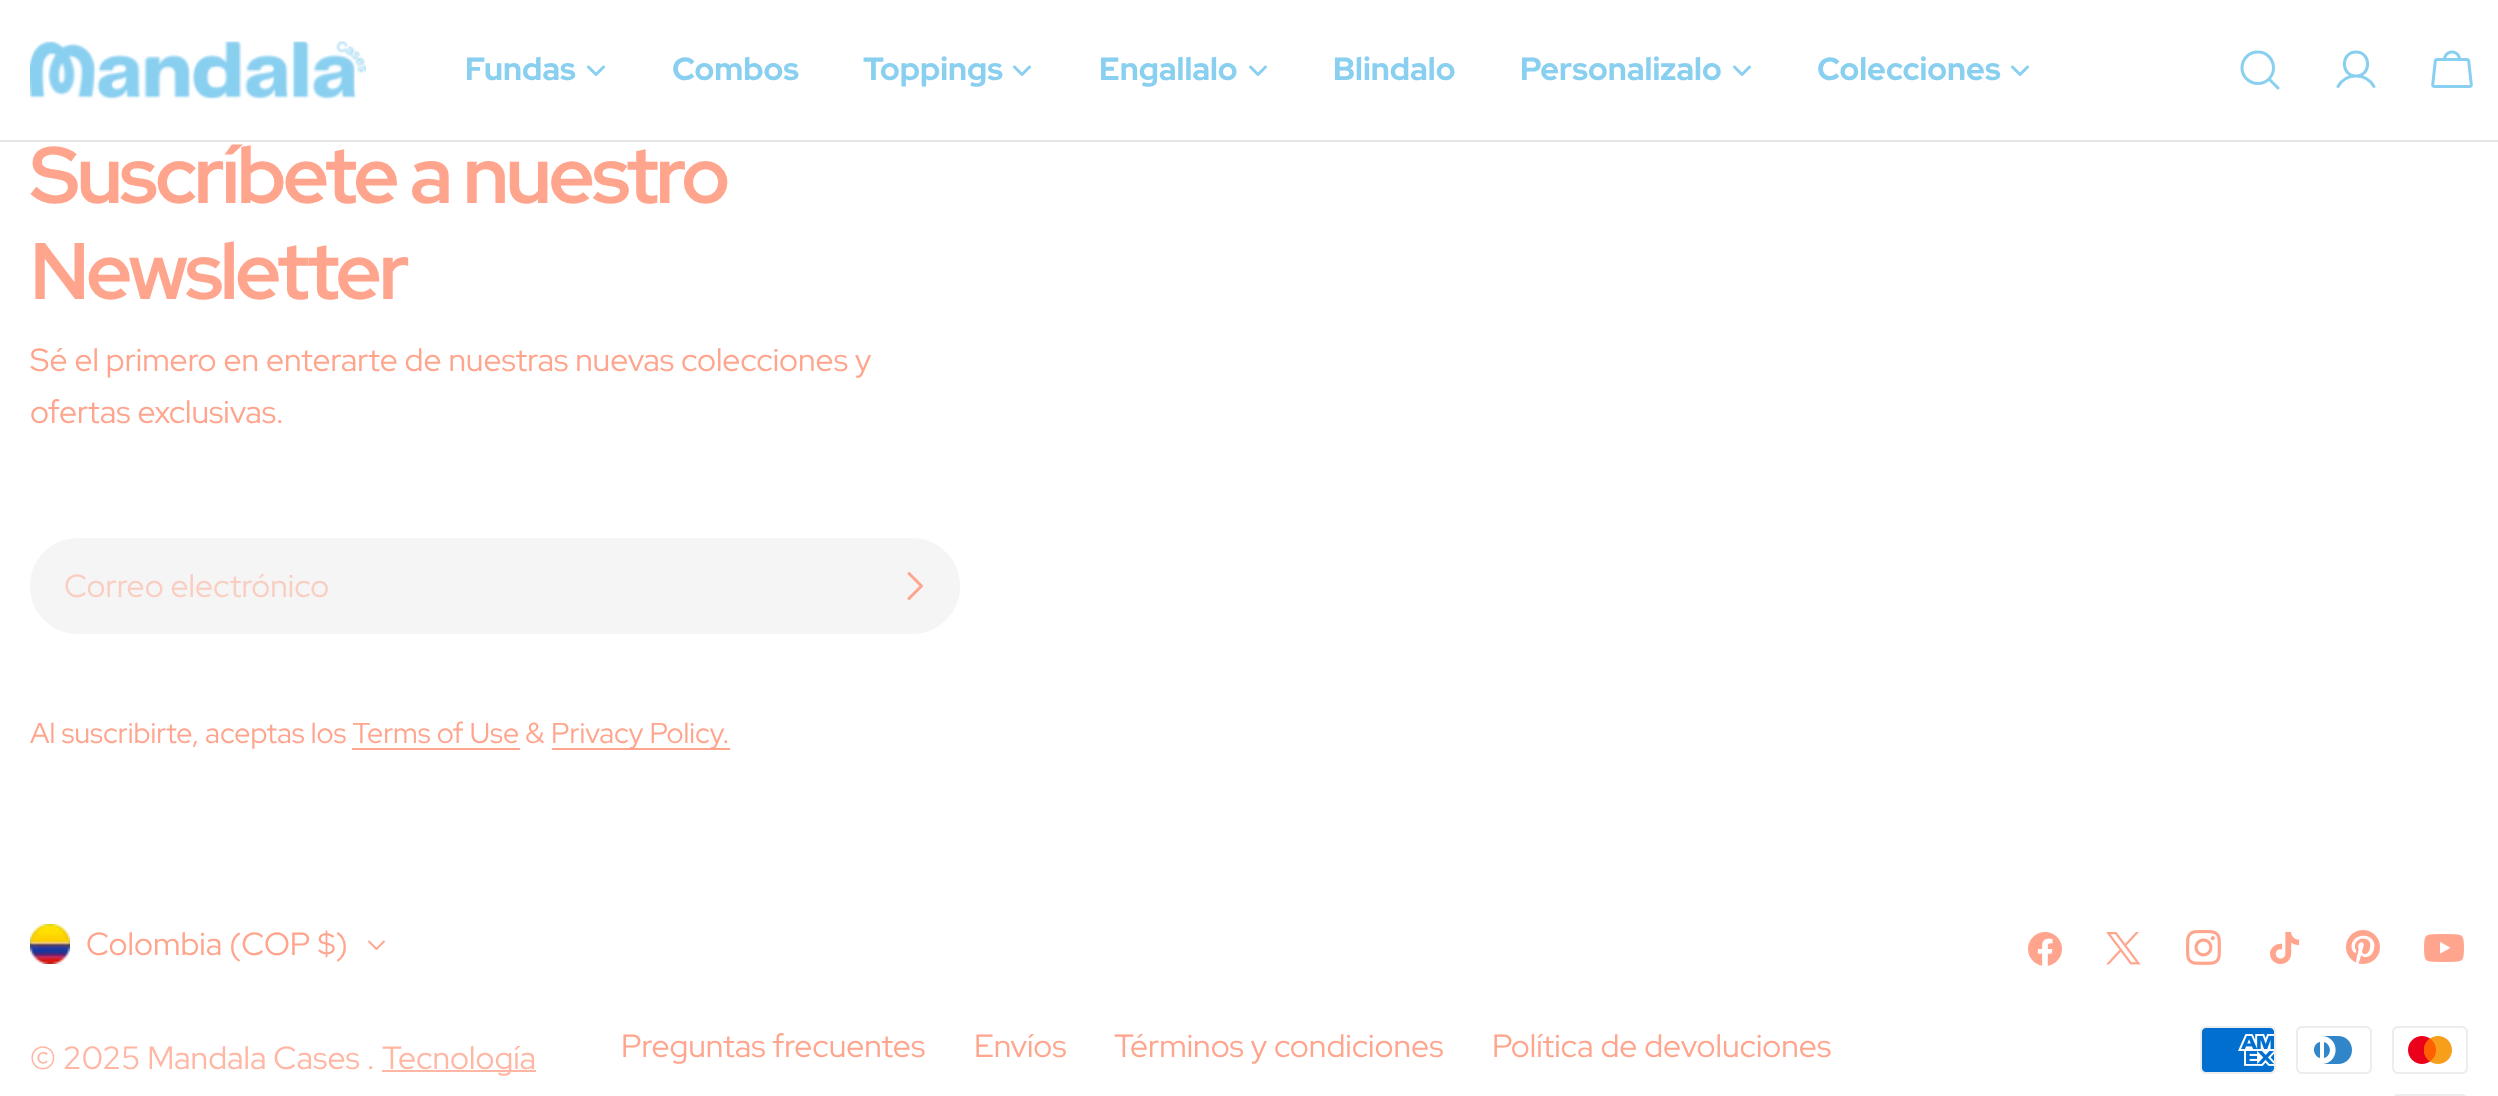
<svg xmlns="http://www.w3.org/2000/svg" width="2498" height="1096">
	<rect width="100%" height="100%" fill="#FFFFFF" />
	<rect x="0" y="140" width="2498" height="2" fill="#E6E6E6" />
	<image x="30" y="41" width="336" height="59" href="assets/img1.png" />
	<text x="465" y="80" font-family="Red Hat Display" font-size="32" font-weight="800" fill="#89CFF0">Fundas</text>
	<path d="M603.5 67L596 74.5L588.5 67" fill="none" stroke="#89CFF0" stroke-width="3" stroke-linecap="round" stroke-linejoin="round" />
	<g font-family="Red Hat Display" font-size="32" font-weight="800" fill="#89CFF0">
		<text x="672" y="80">Combos</text>
		<text x="863" y="80">Toppings</text>
	</g>
	<path d="M1029.5 67L1022 74.5L1014.5 67" fill="none" stroke="#89CFF0" stroke-width="3" stroke-linecap="round" stroke-linejoin="round" />
	<text x="1099" y="80" font-family="Red Hat Display" font-size="32" font-weight="800" fill="#89CFF0">Engallalo</text>
	<path d="M1265.5 67L1258 74.5L1250.5 67" fill="none" stroke="#89CFF0" stroke-width="3" stroke-linecap="round" stroke-linejoin="round" />
	<g font-family="Red Hat Display" font-size="32" font-weight="800" fill="#89CFF0">
		<text x="1333" y="80">Blindalo</text>
		<text x="1520" y="80">Personalizalo</text>
	</g>
	<path d="M1749.5 67L1742 74.5L1734.5 67" fill="none" stroke="#89CFF0" stroke-width="3" stroke-linecap="round" stroke-linejoin="round" />
	<text x="1817" y="80" font-family="Red Hat Display" font-size="32" font-weight="800" fill="#89CFF0">Colecciones</text>
	<path d="M2027.5 67L2020 74.5L2012.5 67" fill="none" stroke="#89CFF0" stroke-width="3" stroke-linecap="round" stroke-linejoin="round" />
	<path d="M2258 83.5C2266.5 83.5 2273.5 76.5 2273.5 68C2273.5 59 2266.5 52 2258 52C2249 52 2242 59 2242 68C2242 76.5 2249 83.5 2258 83.5ZM2269 79L2278 88" fill="none" stroke="#89CFF0" stroke-width="3" stroke-linecap="round" stroke-linejoin="round" />
	<path d="M2356 76C2371.5 76 2371.5 52 2356 52C2340.5 52 2340.5 76 2356 76ZM2338 86.5C2346 72.5 2366 72.5 2374 86.5" fill="none" stroke="#89CFF0" stroke-width="3" stroke-linecap="round" stroke-linejoin="round" />
	<image x="2431" y="50" width="42" height="38" href="assets/img2.png" />
	<g font-family="Red Hat Display" font-size="80" font-weight="700" letter-spacing="-3.25" fill="#FFA58D">
		<text x="30" y="203">Suscríbete a nuestro</text>
		<text x="30" y="299">Newsletter</text>
	</g>
	<g font-family="Red Hat Display" font-size="32" fill="#FFA58D">
		<text x="30" y="371">Sé el primero en enterarte de nuestras nuevas colecciones y</text>
		<text x="30" y="423">ofertas exclusivas.</text>
	</g>
	<rect x="31" y="539" width="928" height="94" rx="47" fill="#F5F5F5" stroke="#F5F5F5" stroke-width="2" />
	<text x="64" y="597" font-family="Red Hat Display" font-size="32" fill="#FACDC1">Correo electrónico</text>
	<path d="M909 573.5L921.5 586L909 598.5" fill="none" stroke="#FFA58D" stroke-width="3" stroke-linecap="round" stroke-linejoin="round" />
	<text x="30" y="743" font-family="Red Hat Display" font-size="28.75" fill="#FFA58D">Al suscribirte, aceptas los Terms of Use &amp;</text>
	<rect x="552" y="748" width="178" height="2" fill="#FFA58D" />
	<text x="551" y="743" font-family="Red Hat Display" font-size="28.75" fill="#FFA58D">Privacy Policy.</text>
	<rect x="352" y="748" width="168" height="2" fill="#FFA58D" />
	<image x="30" y="924" width="40" height="40" href="assets/img3.png" />
	<text x="86" y="955" font-family="Red Hat Display" font-size="32" fill="#FFA58D">Colombia (COP $)</text>
	<path d="M384 941.5L376.5 949L369 941.5" fill="none" stroke="#FFA58D" stroke-width="1.8" stroke-linecap="round" stroke-linejoin="round" />
	<image x="2028" y="932" width="34" height="34" href="assets/img4.png" />
	<image x="2106" y="932" width="35" height="33" href="assets/img5.png" />
	<image x="2186" y="930" width="35" height="35" href="assets/img6.png" />
	<image x="2270" y="932" width="30" height="32" href="assets/img7.png" />
	<image x="2346" y="930" width="34" height="34" href="assets/img8.png" />
	<image x="2424" y="934" width="40" height="28" href="assets/img9.png" />
	<text x="30" y="1069" font-family="Red Hat Display" font-size="32" fill="#FFB7A4">© 2025 Mandala Cases .</text>
	<rect x="382" y="1070" width="154" height="2" fill="#FFB7A4" />
	<text x="382" y="1069" font-family="Red Hat Display" font-size="32" fill="#FFB7A4">Tecnología</text>
	<g font-family="Red Hat Display" font-size="32" fill="#FFA58D">
		<text x="621" y="1057">Preguntas frecuentes</text>
		<text x="974" y="1057">Envíos</text>
		<text x="1114" y="1057">Términos y condiciones</text>
		<text x="1492" y="1057">Política de devoluciones</text>
	</g>
	<image x="2200" y="1026" width="76" height="48" href="assets/img10.png" />
	<image x="2296" y="1026" width="76" height="48" href="assets/img11.png" />
	<image x="2392" y="1026" width="76" height="48" href="assets/img12.png" />
	<image x="2394" y="1094" width="72" height="2" href="assets/img13.png" />
</svg>
